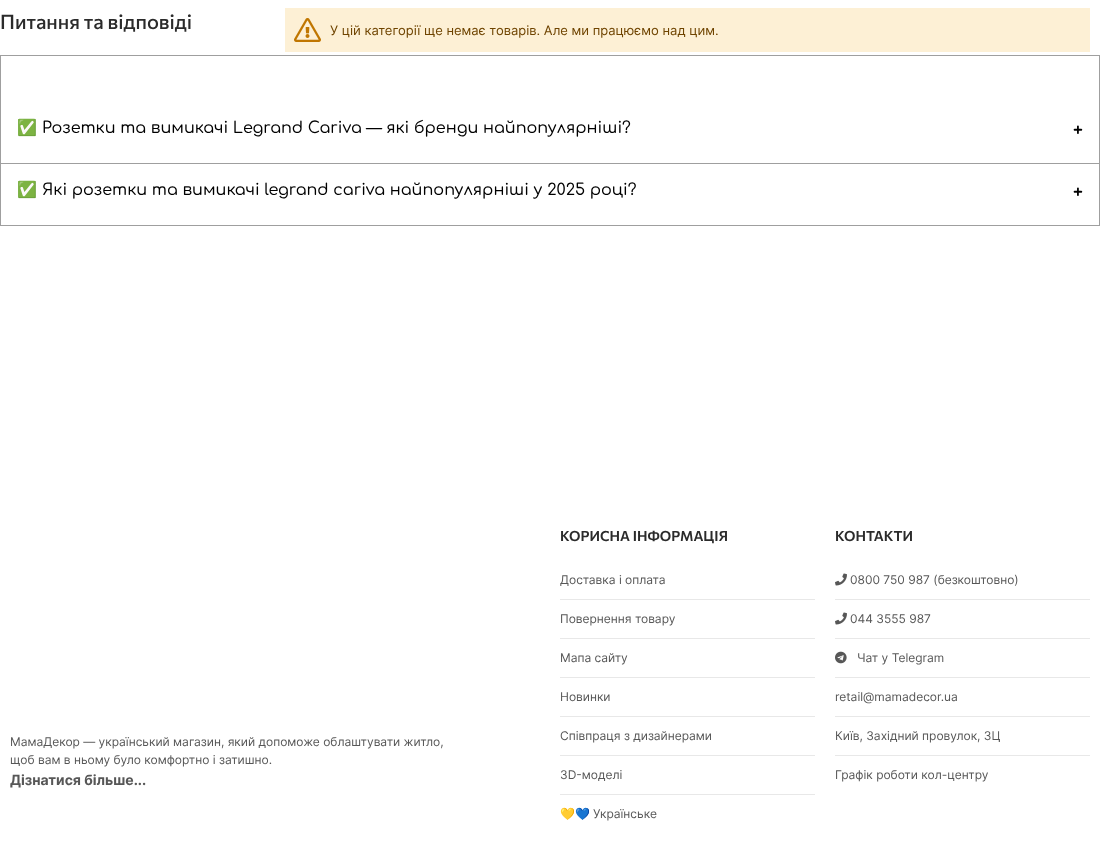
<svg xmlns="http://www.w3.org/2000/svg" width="1100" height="854">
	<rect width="100%" height="100%" fill="#FFFFFF" />
	<text x="0" y="29" font-family="Commissioner" font-size="20" font-weight="500" fill="#2B2B2B">Питання та відповіді</text>
	<rect x="0.5" y="55.5" width="1099" height="108" fill="none" stroke="#9F9F9F" />
	<text x="17" y="133" font-family="Noto Color Emoji" font-size="16" fill="#000000">✅</text>
	<text x="42" y="133" font-family="Comfortaa" font-size="16" font-weight="500" fill="#000000">Розетки та вимикачі Legrand Cariva — які бренди найпопулярніші?</text>
	<text x="1073" y="136" font-family="Comfortaa" font-size="18" font-weight="700" fill="#000000">+</text>
	<rect x="1099" y="164" width="1" height="62" fill="#9F9F9F" />
	<rect x="0" y="225" width="1100" height="1" fill="#9F9F9F" />
	<rect x="0" y="164" width="1" height="62" fill="#9F9F9F" />
	<text x="17" y="195" font-family="Noto Color Emoji" font-size="16" fill="#000000">✅</text>
	<text x="42" y="195" font-family="Comfortaa" font-size="16" font-weight="500" fill="#000000">Які розетки та вимикачі legrand cariva найпопулярніші у 2025 році?</text>
	<text x="1073" y="198" font-family="Comfortaa" font-size="18" font-weight="700" fill="#000000">+</text>
	<rect x="285" y="8" width="805" height="44" fill="#FDF0D5" />
	<image x="294" y="18" width="27" height="24" href="assets/img1.png" />
	<text x="330" y="35" font-family="Inter" font-size="13" fill="#6F4400">У цій категорії ще немає товарів. Але ми працюємо над цим.</text>
	<g font-family="Inter" font-size="12" fill="#575757">
		<text x="10" y="746">МамаДекор — український магазин, який допоможе облаштувати житло,</text>
		<text x="10" y="764">щоб вам в ньому було комфортно і затишно.</text>
	</g>
	<text x="10" y="785" font-family="Inter" font-size="14" font-weight="700" fill="#575757">Дізнатися більше...</text>
	<text x="560" y="541" font-family="Commissioner" font-size="14" font-weight="600" fill="#2B2B2B">КОРИСНА ІНФОРМАЦІЯ</text>
	<rect x="560" y="599" width="255" height="1" fill="#E8E8E8" />
	<text x="560" y="584" font-family="Inter" font-size="12" fill="#575757">Доставка і оплата</text>
	<rect x="560" y="638" width="255" height="1" fill="#E8E8E8" />
	<text x="560" y="623" font-family="Inter" font-size="12" fill="#575757">Повернення товару</text>
	<rect x="560" y="677" width="255" height="1" fill="#E8E8E8" />
	<text x="560" y="662" font-family="Inter" font-size="12" fill="#575757">Мапа сайту</text>
	<rect x="560" y="716" width="255" height="1" fill="#E8E8E8" />
	<text x="560" y="701" font-family="Inter" font-size="12" fill="#575757">Новинки</text>
	<rect x="560" y="755" width="255" height="1" fill="#E8E8E8" />
	<text x="560" y="740" font-family="Inter" font-size="12" fill="#575757">Співпраця з дизайнерами</text>
	<rect x="560" y="794" width="255" height="1" fill="#E8E8E8" />
	<text x="560" y="779" font-family="Inter" font-size="12" fill="#575757">3D-моделі</text>
	<text x="560" y="818" font-family="Noto Color Emoji" font-size="12" fill="#575757">💛💙</text>
	<text x="593" y="818" font-family="Inter" font-size="12" fill="#575757">Українське</text>
	<text x="835" y="541" font-family="Commissioner" font-size="14" font-weight="600" fill="#2B2B2B">КОНТАКТИ</text>
	<rect x="835" y="599" width="255" height="1" fill="#E8E8E8" />
	<image x="835" y="573" width="12" height="13" href="assets/img2.png" />
	<text x="850" y="584" font-family="Inter" font-size="12" fill="#575757">0800 750 987 (безкоштовно)</text>
	<rect x="835" y="638" width="255" height="1" fill="#E8E8E8" />
	<image x="835" y="612" width="12" height="13" href="assets/img2.png" />
	<text x="850" y="623" font-family="Inter" font-size="12" fill="#575757">044 3555 987</text>
	<rect x="835" y="677" width="255" height="1" fill="#E8E8E8" />
	<image x="835" y="651" width="12" height="13" href="assets/img3.png" />
	<text x="857" y="662" font-family="Inter" font-size="12" fill="#575757">Чат у Telegram</text>
	<rect x="835" y="716" width="255" height="1" fill="#E8E8E8" />
	<text x="835" y="701" font-family="Inter" font-size="12" fill="#575757">retail@mamadecor.ua</text>
	<rect x="835" y="755" width="255" height="1" fill="#E8E8E8" />
	<g font-family="Inter" font-size="12" fill="#575757">
		<text x="835" y="740">Київ, Західний провулок, 3Ц</text>
		<text x="835" y="779">Графік роботи кол-центру</text>
	</g>
</svg>
